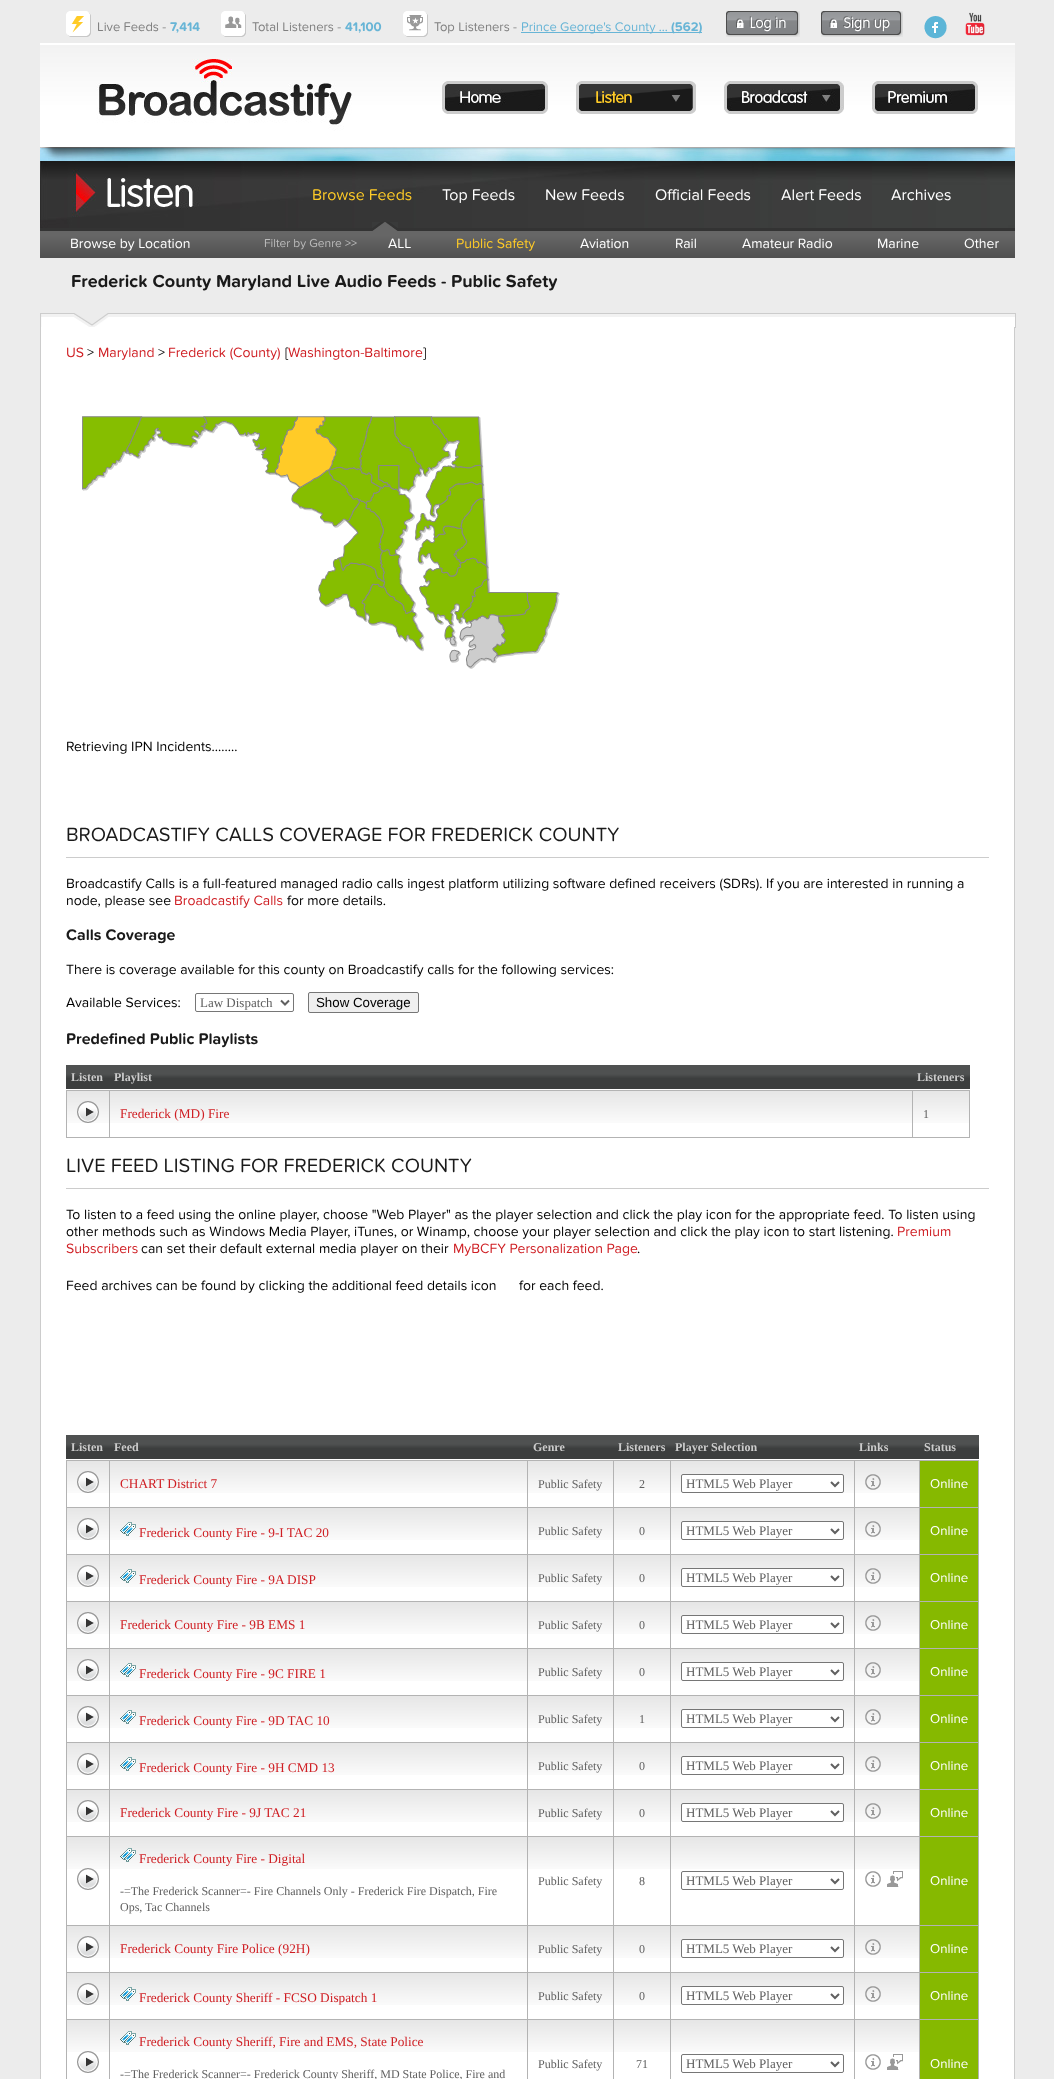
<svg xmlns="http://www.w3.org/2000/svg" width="1054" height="2079">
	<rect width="100%" height="100%" fill="#ECECEC" />
	<image x="66" y="11" width="25" height="26" href="assets/img1.png" />
	<text x="97" y="31" font-family="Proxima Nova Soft" font-size="13" fill="#808080">Live Feeds -</text>
	<text x="170" y="31" font-family="Proxima Nova Soft" font-size="13" font-weight="700" fill="#68B5D6">7,414</text>
	<image x="221" y="11" width="25" height="26" href="assets/img2.png" />
	<text x="252" y="31" font-family="Proxima Nova Soft" font-size="13" fill="#808080">Total Listeners -</text>
	<text x="345" y="31" font-family="Proxima Nova Soft" font-size="13" font-weight="700" fill="#68B5D6">41,100</text>
	<image x="403" y="11" width="25" height="26" href="assets/img3.png" />
	<text x="434" y="31" font-family="Proxima Nova Soft" font-size="13" fill="#808080">Top Listeners -</text>
	<rect x="521" y="32" width="181" height="1" fill="#68B5D6" />
	<text x="521" y="31" font-family="Proxima Nova Soft" font-size="13" fill="#68B5D6">Prince George's County ...</text>
	<text x="671" y="31" font-family="Proxima Nova Soft" font-size="13" font-weight="700" fill="#68B5D6">(562)</text>
	<image x="726" y="11" width="74" height="26" href="assets/img4.png" />
	<image x="821" y="11" width="82" height="26" href="assets/img5.png" />
	<image x="924" y="16" width="23" height="23" href="assets/img6.png" />
	<image x="965" y="12" width="20" height="24" href="assets/img7.png" />
	<rect x="40" y="43" width="975" height="2" fill="#FFFFFF" />
	<image x="40" y="45" width="975" height="103" href="assets/img8.png" />
	<image x="442" y="81" width="106" height="33" href="assets/img9.png" />
	<image x="576" y="81" width="120" height="33" href="assets/img10.png" />
	<image x="724" y="81" width="120" height="33" href="assets/img11.png" />
	<image x="872" y="81" width="106" height="33" href="assets/img12.png" />
	<image x="40" y="148" width="975" height="13" href="assets/img13.png" />
	<image x="40" y="161" width="975" height="67" href="assets/img14.png" />
	<text x="312" y="200" font-family="Proxima Nova Soft" font-size="16" fill="#FFCB27">Browse Feeds</text>
	<g font-family="Proxima Nova Soft" font-size="16" fill="#FFFFFF">
		<text x="442" y="200">Top Feeds</text>
		<text x="545" y="200">New Feeds</text>
		<text x="655" y="200">Official Feeds</text>
		<text x="781" y="200">Alert Feeds</text>
		<text x="891" y="200">Archives</text>
	</g>
	<image x="40" y="228" width="975" height="30" href="assets/img15.png" />
	<image x="372" y="222" width="26" height="9" href="assets/img16.png" />
	<text x="70" y="248" font-family="Proxima Nova Soft" font-size="14" fill="#FFFFFF">Browse by Location</text>
	<text x="264" y="247" font-family="Proxima Nova Soft" font-size="12" fill="#BBBBBB">Filter by Genre &gt;&gt;</text>
	<text x="388" y="248" font-family="Proxima Nova Soft" font-size="14" fill="#FFFFFF">ALL</text>
	<text x="456" y="248" font-family="Proxima Nova Soft" font-size="14" fill="#FFCB27">Public Safety</text>
	<g font-family="Proxima Nova Soft" font-size="14" fill="#FFFFFF">
		<text x="580" y="248">Aviation</text>
		<text x="675" y="248">Rail</text>
		<text x="742" y="248">Amateur Radio</text>
		<text x="877" y="248">Marine</text>
		<text x="964" y="248">Other</text>
	</g>
	<image x="40" y="313" width="976" height="15" href="assets/img17.png" />
	<text x="71" y="287" font-family="Proxima Nova Soft" font-size="18" font-weight="700" fill="#1A1A1A">Frederick County Maryland Live Audio Feeds - Public Safety</text>
	<rect x="41" y="327" width="973" height="1752" fill="#FFFFFF" />
	<rect x="1014" y="327" width="1" height="1752" fill="#CCCCCC" />
	<rect x="40" y="327" width="1" height="1752" fill="#CCCCCC" />
	<text x="66" y="357" font-family="Proxima Nova Soft" font-size="14" fill="#CF1E23">US</text>
	<text x="87" y="357" font-family="Proxima Nova Soft" font-size="14" fill="#000000">&gt;</text>
	<text x="98" y="357" font-family="Proxima Nova Soft" font-size="14" fill="#CF1E23">Maryland</text>
	<text x="158" y="357" font-family="Proxima Nova Soft" font-size="14" fill="#000000">&gt;</text>
	<text x="168" y="357" font-family="Proxima Nova Soft" font-size="14" fill="#CF1E23">Frederick (County)</text>
	<text x="285" y="357" font-family="Proxima Nova Soft" font-size="14" fill="#000000">[</text>
	<text x="288" y="357" font-family="Proxima Nova Soft" font-size="14" fill="#CF1E23">Washington-Baltimore</text>
	<text x="423" y="357" font-family="Proxima Nova Soft" font-size="14" fill="#000000">]</text>
	<image x="82" y="416" width="478" height="253" href="assets/img18.png" />
	<text x="66" y="751" font-family="Proxima Nova Soft" font-size="14" fill="#000000">Retrieving IPN Incidents........</text>
	<rect x="66" y="857" width="923" height="1" fill="#CCCCCC" />
	<text x="66" y="841" font-family="Proxima Nova Soft" font-size="20" fill="#1A1A1A">BROADCASTIFY CALLS COVERAGE FOR FREDERICK COUNTY</text>
	<g font-family="Proxima Nova Soft" font-size="14" fill="#000000">
		<text x="66" y="888">Broadcastify Calls is a full-featured managed radio calls ingest platform utilizing software defined receivers (SDRs). If you are interested in running a</text>
		<text x="66" y="905">node, please see</text>
	</g>
	<text x="174" y="905" font-family="Proxima Nova Soft" font-size="14" fill="#CF1E23">Broadcastify Calls</text>
	<text x="287" y="905" font-family="Proxima Nova Soft" font-size="14" fill="#000000">for more details.</text>
	<text x="66" y="940" font-family="Proxima Nova Soft" font-size="16" font-weight="700" fill="#1A1A1A">Calls Coverage</text>
	<g font-family="Proxima Nova Soft" font-size="14" fill="#000000">
		<text x="66" y="974">There is coverage available for this county on Broadcastify calls for the following services:</text>
		<text x="66" y="1007">Available Services:</text>
	</g>
	<rect x="195.5" y="993.5" width="98" height="18" rx="1.5" fill="none" stroke="#767676" />
	<path d="M281 1000.5L285 1004.5L289 1000.5" fill="none" stroke="#606060" stroke-width="2" />
	<text x="200" y="1007" font-family="Liberation Serif" font-size="13" fill="#606060">Law Dispatch</text>
	<rect x="308.5" y="992.5" width="110" height="20" rx="1.5" fill="#EFEFEF" stroke="#767676" />
	<text x="316" y="1007" font-family="Liberation Sans" font-size="13.3" fill="#000000">Show Coverage</text>
	<text x="66" y="1044" font-family="Proxima Nova Soft" font-size="16" font-weight="700" fill="#1A1A1A">Predefined Public Playlists</text>
	<image x="66" y="1065" width="43" height="24" href="assets/img19.png" />
	<text x="71" y="1081" font-family="Liberation Serif" font-size="12" font-weight="700" fill="#CCCCCC">Listen</text>
	<image x="109" y="1065" width="803" height="24" href="assets/img20.png" />
	<text x="114" y="1081" font-family="Liberation Serif" font-size="12" font-weight="700" fill="#CCCCCC">Playlist</text>
	<image x="912" y="1065" width="58" height="24" href="assets/img21.png" />
	<text x="917" y="1081" font-family="Liberation Serif" font-size="12" font-weight="700" fill="#CCCCCC">Listeners</text>
	<image x="67" y="1091" width="42" height="32" href="assets/img22.png" />
	<rect x="912" y="1090" width="58" height="1" fill="#B3B3B3" />
	<rect x="969" y="1090" width="1" height="48" fill="#B3B3B3" />
	<rect x="912" y="1137" width="58" height="1" fill="#B3B3B3" />
	<rect x="912" y="1090" width="1" height="48" fill="#B3B3B3" />
	<rect x="109" y="1090" width="804" height="1" fill="#B3B3B3" />
	<rect x="109" y="1137" width="804" height="1" fill="#B3B3B3" />
	<rect x="109" y="1090" width="1" height="48" fill="#B3B3B3" />
	<rect x="66" y="1090" width="44" height="1" fill="#B3B3B3" />
	<rect x="66" y="1137" width="44" height="1" fill="#B3B3B3" />
	<rect x="66" y="1090" width="1" height="48" fill="#B3B3B3" />
	<image x="77" y="1101" width="22" height="22" href="assets/img23.png" />
	<image x="110" y="1091" width="802" height="32" href="assets/img24.png" />
	<text x="120" y="1118" font-family="Liberation Serif" font-size="13.3" fill="#CF1E23">Frederick (MD) Fire</text>
	<image x="913" y="1091" width="56" height="32" href="assets/img25.png" />
	<text x="923" y="1118" font-family="Liberation Serif" font-size="12" fill="#606060">1</text>
	<rect x="66" y="1188" width="923" height="1" fill="#CCCCCC" />
	<text x="66" y="1172" font-family="Proxima Nova Soft" font-size="20" fill="#1A1A1A">LIVE FEED LISTING FOR FREDERICK COUNTY</text>
	<g font-family="Proxima Nova Soft" font-size="14" fill="#000000">
		<text x="66" y="1219">To listen to a feed using the online player, choose "Web Player" as the player selection and click the play icon for the appropriate feed. To listen using</text>
		<text x="66" y="1236">other methods such as Windows Media Player, iTunes, or Winamp, choose your player selection and click the play icon to start listening.</text>
	</g>
	<g font-family="Proxima Nova Soft" font-size="14" fill="#CF1E23">
		<text x="897" y="1236">Premium</text>
		<text x="66" y="1253">Subscribers</text>
	</g>
	<text x="141" y="1253" font-family="Proxima Nova Soft" font-size="14" fill="#000000">can set their default external media player on their</text>
	<text x="453" y="1253" font-family="Proxima Nova Soft" font-size="14" fill="#CF1E23">MyBCFY Personalization Page</text>
	<g font-family="Proxima Nova Soft" font-size="14" fill="#000000">
		<text x="637" y="1253">.</text>
		<text x="66" y="1290">Feed archives can be found by clicking the additional feed details icon</text>
		<text x="519" y="1290">for each feed.</text>
	</g>
	<image x="66" y="1435" width="43" height="24" href="assets/img19.png" />
	<text x="71" y="1451" font-family="Liberation Serif" font-size="12" font-weight="700" fill="#CCCCCC">Listen</text>
	<image x="109" y="1435" width="419" height="24" href="assets/img26.png" />
	<text x="114" y="1451" font-family="Liberation Serif" font-size="12" font-weight="700" fill="#CCCCCC">Feed</text>
	<image x="528" y="1435" width="85" height="24" href="assets/img27.png" />
	<text x="533" y="1451" font-family="Liberation Serif" font-size="12" font-weight="700" fill="#CCCCCC">Genre</text>
	<image x="613" y="1435" width="57" height="24" href="assets/img28.png" />
	<text x="618" y="1451" font-family="Liberation Serif" font-size="12" font-weight="700" fill="#CCCCCC">Listeners</text>
	<image x="670" y="1435" width="184" height="24" href="assets/img29.png" />
	<text x="675" y="1451" font-family="Liberation Serif" font-size="12" font-weight="700" fill="#CCCCCC">Player Selection</text>
	<image x="854" y="1435" width="65" height="24" href="assets/img30.png" />
	<text x="859" y="1451" font-family="Liberation Serif" font-size="12" font-weight="700" fill="#CCCCCC">Links</text>
	<image x="919" y="1435" width="60" height="24" href="assets/img31.png" />
	<text x="924" y="1451" font-family="Liberation Serif" font-size="12" font-weight="700" fill="#CCCCCC">Status</text>
	<image x="67" y="1461" width="42" height="32" href="assets/img22.png" />
	<rect x="919" y="1460" width="60" height="1" fill="#B3B3B3" />
	<rect x="919" y="1507" width="60" height="1" fill="#B3B3B3" />
	<rect x="919" y="1554" width="60" height="1" fill="#B3B3B3" />
	<rect x="919" y="1601" width="60" height="1" fill="#B3B3B3" />
	<rect x="919" y="1648" width="60" height="1" fill="#B3B3B3" />
	<rect x="919" y="1695" width="60" height="1" fill="#B3B3B3" />
	<rect x="919" y="1742" width="60" height="1" fill="#B3B3B3" />
	<rect x="919" y="1789" width="60" height="1" fill="#B3B3B3" />
	<rect x="919" y="1836" width="60" height="1" fill="#B3B3B3" />
	<rect x="919" y="1925" width="60" height="1" fill="#B3B3B3" />
	<rect x="919" y="1972" width="60" height="1" fill="#B3B3B3" />
	<rect x="919" y="2019" width="60" height="1" fill="#B3B3B3" />
	<rect x="919" y="2019" width="1" height="60" fill="#B3B3B3" />
	<rect x="854" y="2019" width="66" height="1" fill="#B3B3B3" />
	<rect x="919" y="1972" width="1" height="48" fill="#B3B3B3" />
	<rect x="854" y="1972" width="66" height="1" fill="#B3B3B3" />
	<rect x="919" y="1925" width="1" height="48" fill="#B3B3B3" />
	<rect x="854" y="1925" width="66" height="1" fill="#B3B3B3" />
	<rect x="919" y="1836" width="1" height="90" fill="#B3B3B3" />
	<rect x="854" y="1836" width="66" height="1" fill="#B3B3B3" />
	<rect x="919" y="1789" width="1" height="48" fill="#B3B3B3" />
	<rect x="854" y="1789" width="66" height="1" fill="#B3B3B3" />
	<rect x="919" y="1742" width="1" height="48" fill="#B3B3B3" />
	<rect x="854" y="1742" width="66" height="1" fill="#B3B3B3" />
	<rect x="919" y="1695" width="1" height="48" fill="#B3B3B3" />
	<rect x="854" y="1695" width="66" height="1" fill="#B3B3B3" />
	<rect x="919" y="1648" width="1" height="48" fill="#B3B3B3" />
	<rect x="854" y="1648" width="66" height="1" fill="#B3B3B3" />
	<rect x="919" y="1601" width="1" height="48" fill="#B3B3B3" />
	<rect x="854" y="1601" width="66" height="1" fill="#B3B3B3" />
	<rect x="919" y="1554" width="1" height="48" fill="#B3B3B3" />
	<rect x="854" y="1554" width="66" height="1" fill="#B3B3B3" />
	<rect x="919" y="1507" width="1" height="48" fill="#B3B3B3" />
	<rect x="854" y="1507" width="66" height="1" fill="#B3B3B3" />
	<rect x="919" y="1460" width="1" height="48" fill="#B3B3B3" />
	<rect x="854" y="1460" width="66" height="1" fill="#B3B3B3" />
	<rect x="854" y="2019" width="1" height="60" fill="#B3B3B3" />
	<rect x="670" y="2019" width="185" height="1" fill="#B3B3B3" />
	<rect x="854" y="1972" width="1" height="48" fill="#B3B3B3" />
	<rect x="670" y="1972" width="185" height="1" fill="#B3B3B3" />
	<rect x="854" y="1925" width="1" height="48" fill="#B3B3B3" />
	<rect x="670" y="1925" width="185" height="1" fill="#B3B3B3" />
	<rect x="854" y="1836" width="1" height="90" fill="#B3B3B3" />
	<rect x="670" y="1836" width="185" height="1" fill="#B3B3B3" />
	<rect x="854" y="1789" width="1" height="48" fill="#B3B3B3" />
	<rect x="670" y="1789" width="185" height="1" fill="#B3B3B3" />
	<rect x="854" y="1742" width="1" height="48" fill="#B3B3B3" />
	<rect x="670" y="1742" width="185" height="1" fill="#B3B3B3" />
	<rect x="854" y="1695" width="1" height="48" fill="#B3B3B3" />
	<rect x="670" y="1695" width="185" height="1" fill="#B3B3B3" />
	<rect x="854" y="1648" width="1" height="48" fill="#B3B3B3" />
	<rect x="670" y="1648" width="185" height="1" fill="#B3B3B3" />
	<rect x="854" y="1601" width="1" height="48" fill="#B3B3B3" />
	<rect x="670" y="1601" width="185" height="1" fill="#B3B3B3" />
	<rect x="854" y="1554" width="1" height="48" fill="#B3B3B3" />
	<rect x="670" y="1554" width="185" height="1" fill="#B3B3B3" />
	<rect x="854" y="1507" width="1" height="48" fill="#B3B3B3" />
	<rect x="670" y="1507" width="185" height="1" fill="#B3B3B3" />
	<rect x="854" y="1460" width="1" height="48" fill="#B3B3B3" />
	<rect x="670" y="1460" width="185" height="1" fill="#B3B3B3" />
	<rect x="670" y="2019" width="1" height="60" fill="#B3B3B3" />
	<rect x="613" y="2019" width="58" height="1" fill="#B3B3B3" />
	<rect x="670" y="1972" width="1" height="48" fill="#B3B3B3" />
	<rect x="613" y="1972" width="58" height="1" fill="#B3B3B3" />
	<rect x="670" y="1925" width="1" height="48" fill="#B3B3B3" />
	<rect x="613" y="1925" width="58" height="1" fill="#B3B3B3" />
	<rect x="670" y="1836" width="1" height="90" fill="#B3B3B3" />
	<rect x="613" y="1836" width="58" height="1" fill="#B3B3B3" />
	<rect x="670" y="1789" width="1" height="48" fill="#B3B3B3" />
	<rect x="613" y="1789" width="58" height="1" fill="#B3B3B3" />
	<rect x="670" y="1742" width="1" height="48" fill="#B3B3B3" />
	<rect x="613" y="1742" width="58" height="1" fill="#B3B3B3" />
	<rect x="670" y="1695" width="1" height="48" fill="#B3B3B3" />
	<rect x="613" y="1695" width="58" height="1" fill="#B3B3B3" />
	<rect x="670" y="1648" width="1" height="48" fill="#B3B3B3" />
	<rect x="613" y="1648" width="58" height="1" fill="#B3B3B3" />
	<rect x="670" y="1601" width="1" height="48" fill="#B3B3B3" />
	<rect x="613" y="1601" width="58" height="1" fill="#B3B3B3" />
	<rect x="670" y="1554" width="1" height="48" fill="#B3B3B3" />
	<rect x="613" y="1554" width="58" height="1" fill="#B3B3B3" />
	<rect x="670" y="1507" width="1" height="48" fill="#B3B3B3" />
	<rect x="613" y="1507" width="58" height="1" fill="#B3B3B3" />
	<rect x="670" y="1460" width="1" height="48" fill="#B3B3B3" />
	<rect x="613" y="1460" width="58" height="1" fill="#B3B3B3" />
	<rect x="613" y="2019" width="1" height="60" fill="#B3B3B3" />
	<rect x="527" y="2019" width="87" height="1" fill="#B3B3B3" />
	<rect x="613" y="1972" width="1" height="48" fill="#B3B3B3" />
	<rect x="527" y="1972" width="87" height="1" fill="#B3B3B3" />
	<rect x="613" y="1925" width="1" height="48" fill="#B3B3B3" />
	<rect x="527" y="1925" width="87" height="1" fill="#B3B3B3" />
	<rect x="613" y="1836" width="1" height="90" fill="#B3B3B3" />
	<rect x="527" y="1836" width="87" height="1" fill="#B3B3B3" />
	<rect x="613" y="1789" width="1" height="48" fill="#B3B3B3" />
	<rect x="527" y="1789" width="87" height="1" fill="#B3B3B3" />
	<rect x="613" y="1742" width="1" height="48" fill="#B3B3B3" />
	<rect x="527" y="1742" width="87" height="1" fill="#B3B3B3" />
	<rect x="613" y="1695" width="1" height="48" fill="#B3B3B3" />
	<rect x="527" y="1695" width="87" height="1" fill="#B3B3B3" />
	<rect x="613" y="1648" width="1" height="48" fill="#B3B3B3" />
	<rect x="527" y="1648" width="87" height="1" fill="#B3B3B3" />
	<rect x="613" y="1601" width="1" height="48" fill="#B3B3B3" />
	<rect x="527" y="1601" width="87" height="1" fill="#B3B3B3" />
	<rect x="613" y="1554" width="1" height="48" fill="#B3B3B3" />
	<rect x="527" y="1554" width="87" height="1" fill="#B3B3B3" />
	<rect x="613" y="1507" width="1" height="48" fill="#B3B3B3" />
	<rect x="527" y="1507" width="87" height="1" fill="#B3B3B3" />
	<rect x="613" y="1460" width="1" height="48" fill="#B3B3B3" />
	<rect x="527" y="1460" width="87" height="1" fill="#B3B3B3" />
	<rect x="527" y="2019" width="1" height="60" fill="#B3B3B3" />
	<rect x="109" y="2019" width="419" height="1" fill="#B3B3B3" />
	<rect x="527" y="1972" width="1" height="48" fill="#B3B3B3" />
	<rect x="109" y="1972" width="419" height="1" fill="#B3B3B3" />
	<rect x="527" y="1925" width="1" height="48" fill="#B3B3B3" />
	<rect x="109" y="1925" width="419" height="1" fill="#B3B3B3" />
	<rect x="527" y="1836" width="1" height="90" fill="#B3B3B3" />
	<rect x="109" y="1836" width="419" height="1" fill="#B3B3B3" />
	<rect x="527" y="1789" width="1" height="48" fill="#B3B3B3" />
	<rect x="109" y="1789" width="419" height="1" fill="#B3B3B3" />
	<rect x="527" y="1742" width="1" height="48" fill="#B3B3B3" />
	<rect x="109" y="1742" width="419" height="1" fill="#B3B3B3" />
	<rect x="527" y="1695" width="1" height="48" fill="#B3B3B3" />
	<rect x="109" y="1695" width="419" height="1" fill="#B3B3B3" />
	<rect x="527" y="1648" width="1" height="48" fill="#B3B3B3" />
	<rect x="109" y="1648" width="419" height="1" fill="#B3B3B3" />
	<rect x="527" y="1601" width="1" height="48" fill="#B3B3B3" />
	<rect x="109" y="1601" width="419" height="1" fill="#B3B3B3" />
	<rect x="527" y="1554" width="1" height="48" fill="#B3B3B3" />
	<rect x="109" y="1554" width="419" height="1" fill="#B3B3B3" />
	<rect x="527" y="1507" width="1" height="48" fill="#B3B3B3" />
	<rect x="109" y="1507" width="419" height="1" fill="#B3B3B3" />
	<rect x="527" y="1460" width="1" height="48" fill="#B3B3B3" />
	<rect x="109" y="1460" width="419" height="1" fill="#B3B3B3" />
	<rect x="109" y="2019" width="1" height="60" fill="#B3B3B3" />
	<rect x="66" y="2019" width="44" height="1" fill="#B3B3B3" />
	<rect x="109" y="1972" width="1" height="48" fill="#B3B3B3" />
	<rect x="66" y="1972" width="44" height="1" fill="#B3B3B3" />
	<rect x="109" y="1925" width="1" height="48" fill="#B3B3B3" />
	<rect x="66" y="1925" width="44" height="1" fill="#B3B3B3" />
	<rect x="109" y="1836" width="1" height="90" fill="#B3B3B3" />
	<rect x="66" y="1836" width="44" height="1" fill="#B3B3B3" />
	<rect x="109" y="1789" width="1" height="48" fill="#B3B3B3" />
	<rect x="66" y="1789" width="44" height="1" fill="#B3B3B3" />
	<rect x="109" y="1742" width="1" height="48" fill="#B3B3B3" />
	<rect x="66" y="1742" width="44" height="1" fill="#B3B3B3" />
	<rect x="109" y="1695" width="1" height="48" fill="#B3B3B3" />
	<rect x="66" y="1695" width="44" height="1" fill="#B3B3B3" />
	<rect x="109" y="1648" width="1" height="48" fill="#B3B3B3" />
	<rect x="66" y="1648" width="44" height="1" fill="#B3B3B3" />
	<rect x="109" y="1601" width="1" height="48" fill="#B3B3B3" />
	<rect x="66" y="1601" width="44" height="1" fill="#B3B3B3" />
	<rect x="109" y="1554" width="1" height="48" fill="#B3B3B3" />
	<rect x="66" y="1554" width="44" height="1" fill="#B3B3B3" />
	<rect x="109" y="1507" width="1" height="48" fill="#B3B3B3" />
	<rect x="66" y="1507" width="44" height="1" fill="#B3B3B3" />
	<rect x="109" y="1460" width="1" height="48" fill="#B3B3B3" />
	<rect x="66" y="1460" width="44" height="1" fill="#B3B3B3" />
	<rect x="66" y="2019" width="1" height="60" fill="#B3B3B3" />
	<rect x="66" y="1972" width="1" height="48" fill="#B3B3B3" />
	<rect x="66" y="1925" width="1" height="48" fill="#B3B3B3" />
	<rect x="66" y="1836" width="1" height="90" fill="#B3B3B3" />
	<rect x="66" y="1789" width="1" height="48" fill="#B3B3B3" />
	<rect x="66" y="1742" width="1" height="48" fill="#B3B3B3" />
	<rect x="66" y="1695" width="1" height="48" fill="#B3B3B3" />
	<rect x="66" y="1648" width="1" height="48" fill="#B3B3B3" />
	<rect x="66" y="1601" width="1" height="48" fill="#B3B3B3" />
	<rect x="66" y="1554" width="1" height="48" fill="#B3B3B3" />
	<rect x="66" y="1507" width="1" height="48" fill="#B3B3B3" />
	<rect x="66" y="1460" width="1" height="48" fill="#B3B3B3" />
	<image x="77" y="1471" width="22" height="22" href="assets/img23.png" />
	<image x="110" y="1461" width="417" height="32" href="assets/img32.png" />
	<text x="120" y="1488" font-family="Liberation Serif" font-size="13.3" fill="#CF1E23">CHART District 7</text>
	<image x="528" y="1461" width="85" height="32" href="assets/img33.png" />
	<text x="538" y="1488" font-family="Liberation Serif" font-size="12" fill="#606060">Public Safety</text>
	<image x="614" y="1461" width="56" height="32" href="assets/img25.png" />
	<text x="639" y="1488" font-family="Liberation Serif" font-size="12" fill="#606060">2</text>
	<image x="671" y="1461" width="183" height="32" href="assets/img34.png" />
	<rect x="681.5" y="1474.5" width="162" height="18" rx="1.5" fill="#FFFFFF" stroke="#767676" />
	<path d="M831 1482L835 1486L839 1482" fill="none" stroke="#606060" stroke-width="2" />
	<text x="686" y="1488" font-family="Liberation Serif" font-size="13" fill="#606060">HTML5 Web Player</text>
	<image x="855" y="1461" width="64" height="32" href="assets/img35.png" />
	<image x="865" y="1474" width="16" height="16" href="assets/img36.png" />
	<rect x="920" y="1461" width="58" height="46" fill="#86B900" />
	<rect x="978" y="2019" width="1" height="60" fill="#B3B3B3" />
	<rect x="978" y="1972" width="1" height="48" fill="#B3B3B3" />
	<rect x="978" y="1925" width="1" height="48" fill="#B3B3B3" />
	<rect x="978" y="1836" width="1" height="90" fill="#B3B3B3" />
	<rect x="978" y="1789" width="1" height="48" fill="#B3B3B3" />
	<rect x="978" y="1742" width="1" height="48" fill="#B3B3B3" />
	<rect x="978" y="1695" width="1" height="48" fill="#B3B3B3" />
	<rect x="978" y="1648" width="1" height="48" fill="#B3B3B3" />
	<rect x="978" y="1601" width="1" height="48" fill="#B3B3B3" />
	<rect x="978" y="1554" width="1" height="48" fill="#B3B3B3" />
	<rect x="978" y="1507" width="1" height="48" fill="#B3B3B3" />
	<rect x="978" y="1460" width="1" height="48" fill="#B3B3B3" />
	<text x="930" y="1488" font-family="Proxima Nova Soft" font-size="13.3" fill="#FFFFFF">Online</text>
	<image x="67" y="1508" width="42" height="32" href="assets/img22.png" />
	<image x="77" y="1518" width="22" height="22" href="assets/img23.png" />
	<image x="110" y="1508" width="417" height="32" href="assets/img32.png" />
	<image x="120" y="1522" width="16" height="14" href="assets/img37.png" />
	<text x="139" y="1537" font-family="Liberation Serif" font-size="13.3" fill="#CF1E23">Frederick County Fire - 9-I TAC 20</text>
	<image x="528" y="1508" width="85" height="32" href="assets/img33.png" />
	<text x="538" y="1535" font-family="Liberation Serif" font-size="12" fill="#606060">Public Safety</text>
	<image x="614" y="1508" width="56" height="32" href="assets/img25.png" />
	<text x="639" y="1535" font-family="Liberation Serif" font-size="12" fill="#606060">0</text>
	<image x="671" y="1508" width="183" height="32" href="assets/img34.png" />
	<rect x="681.5" y="1521.5" width="162" height="18" rx="1.5" fill="#FFFFFF" stroke="#767676" />
	<path d="M831 1529L835 1533L839 1529" fill="none" stroke="#606060" stroke-width="2" />
	<text x="686" y="1535" font-family="Liberation Serif" font-size="13" fill="#606060">HTML5 Web Player</text>
	<image x="855" y="1508" width="64" height="32" href="assets/img35.png" />
	<image x="865" y="1521" width="16" height="16" href="assets/img36.png" />
	<rect x="920" y="1508" width="58" height="46" fill="#86B900" />
	<text x="930" y="1535" font-family="Proxima Nova Soft" font-size="13.3" fill="#FFFFFF">Online</text>
	<image x="67" y="1555" width="42" height="32" href="assets/img22.png" />
	<image x="77" y="1565" width="22" height="22" href="assets/img23.png" />
	<image x="110" y="1555" width="417" height="32" href="assets/img32.png" />
	<image x="120" y="1569" width="16" height="14" href="assets/img37.png" />
	<text x="139" y="1584" font-family="Liberation Serif" font-size="13.3" fill="#CF1E23">Frederick County Fire - 9A DISP</text>
	<image x="528" y="1555" width="85" height="32" href="assets/img33.png" />
	<text x="538" y="1582" font-family="Liberation Serif" font-size="12" fill="#606060">Public Safety</text>
	<image x="614" y="1555" width="56" height="32" href="assets/img25.png" />
	<text x="639" y="1582" font-family="Liberation Serif" font-size="12" fill="#606060">0</text>
	<image x="671" y="1555" width="183" height="32" href="assets/img34.png" />
	<rect x="681.5" y="1568.5" width="162" height="18" rx="1.5" fill="#FFFFFF" stroke="#767676" />
	<path d="M831 1576L835 1580L839 1576" fill="none" stroke="#606060" stroke-width="2" />
	<text x="686" y="1582" font-family="Liberation Serif" font-size="13" fill="#606060">HTML5 Web Player</text>
	<image x="855" y="1555" width="64" height="32" href="assets/img35.png" />
	<image x="865" y="1568" width="16" height="16" href="assets/img36.png" />
	<rect x="920" y="1555" width="58" height="46" fill="#86B900" />
	<text x="930" y="1582" font-family="Proxima Nova Soft" font-size="13.3" fill="#FFFFFF">Online</text>
	<image x="67" y="1602" width="42" height="32" href="assets/img22.png" />
	<image x="77" y="1612" width="22" height="22" href="assets/img23.png" />
	<image x="110" y="1602" width="417" height="32" href="assets/img32.png" />
	<text x="120" y="1629" font-family="Liberation Serif" font-size="13.3" fill="#CF1E23">Frederick County Fire - 9B EMS 1</text>
	<image x="528" y="1602" width="85" height="32" href="assets/img33.png" />
	<text x="538" y="1629" font-family="Liberation Serif" font-size="12" fill="#606060">Public Safety</text>
	<image x="614" y="1602" width="56" height="32" href="assets/img25.png" />
	<text x="639" y="1629" font-family="Liberation Serif" font-size="12" fill="#606060">0</text>
	<image x="671" y="1602" width="183" height="32" href="assets/img34.png" />
	<rect x="681.5" y="1615.5" width="162" height="18" rx="1.5" fill="#FFFFFF" stroke="#767676" />
	<path d="M831 1623L835 1627L839 1623" fill="none" stroke="#606060" stroke-width="2" />
	<text x="686" y="1629" font-family="Liberation Serif" font-size="13" fill="#606060">HTML5 Web Player</text>
	<image x="855" y="1602" width="64" height="32" href="assets/img35.png" />
	<image x="865" y="1615" width="16" height="16" href="assets/img36.png" />
	<rect x="920" y="1602" width="58" height="46" fill="#86B900" />
	<text x="930" y="1629" font-family="Proxima Nova Soft" font-size="13.3" fill="#FFFFFF">Online</text>
	<image x="67" y="1649" width="42" height="32" href="assets/img22.png" />
	<image x="77" y="1659" width="22" height="22" href="assets/img23.png" />
	<image x="110" y="1649" width="417" height="32" href="assets/img32.png" />
	<image x="120" y="1663" width="16" height="14" href="assets/img37.png" />
	<text x="139" y="1678" font-family="Liberation Serif" font-size="13.3" fill="#CF1E23">Frederick County Fire - 9C FIRE 1</text>
	<image x="528" y="1649" width="85" height="32" href="assets/img33.png" />
	<text x="538" y="1676" font-family="Liberation Serif" font-size="12" fill="#606060">Public Safety</text>
	<image x="614" y="1649" width="56" height="32" href="assets/img25.png" />
	<text x="639" y="1676" font-family="Liberation Serif" font-size="12" fill="#606060">0</text>
	<image x="671" y="1649" width="183" height="32" href="assets/img34.png" />
	<rect x="681.5" y="1662.5" width="162" height="18" rx="1.5" fill="#FFFFFF" stroke="#767676" />
	<path d="M831 1670L835 1674L839 1670" fill="none" stroke="#606060" stroke-width="2" />
	<text x="686" y="1676" font-family="Liberation Serif" font-size="13" fill="#606060">HTML5 Web Player</text>
	<image x="855" y="1649" width="64" height="32" href="assets/img35.png" />
	<image x="865" y="1662" width="16" height="16" href="assets/img36.png" />
	<rect x="920" y="1649" width="58" height="46" fill="#86B900" />
	<text x="930" y="1676" font-family="Proxima Nova Soft" font-size="13.3" fill="#FFFFFF">Online</text>
	<image x="67" y="1696" width="42" height="32" href="assets/img22.png" />
	<image x="77" y="1706" width="22" height="22" href="assets/img23.png" />
	<image x="110" y="1696" width="417" height="32" href="assets/img32.png" />
	<image x="120" y="1710" width="16" height="14" href="assets/img37.png" />
	<text x="139" y="1725" font-family="Liberation Serif" font-size="13.3" fill="#CF1E23">Frederick County Fire - 9D TAC 10</text>
	<image x="528" y="1696" width="85" height="32" href="assets/img33.png" />
	<text x="538" y="1723" font-family="Liberation Serif" font-size="12" fill="#606060">Public Safety</text>
	<image x="614" y="1696" width="56" height="32" href="assets/img25.png" />
	<text x="639" y="1723" font-family="Liberation Serif" font-size="12" fill="#606060">1</text>
	<image x="671" y="1696" width="183" height="32" href="assets/img34.png" />
	<rect x="681.5" y="1709.5" width="162" height="18" rx="1.5" fill="#FFFFFF" stroke="#767676" />
	<path d="M831 1717L835 1721L839 1717" fill="none" stroke="#606060" stroke-width="2" />
	<text x="686" y="1723" font-family="Liberation Serif" font-size="13" fill="#606060">HTML5 Web Player</text>
	<image x="855" y="1696" width="64" height="32" href="assets/img35.png" />
	<image x="865" y="1709" width="16" height="16" href="assets/img36.png" />
	<rect x="920" y="1696" width="58" height="46" fill="#86B900" />
	<text x="930" y="1723" font-family="Proxima Nova Soft" font-size="13.3" fill="#FFFFFF">Online</text>
	<image x="67" y="1743" width="42" height="32" href="assets/img22.png" />
	<image x="77" y="1753" width="22" height="22" href="assets/img23.png" />
	<image x="110" y="1743" width="417" height="32" href="assets/img32.png" />
	<image x="120" y="1757" width="16" height="14" href="assets/img37.png" />
	<text x="139" y="1772" font-family="Liberation Serif" font-size="13.3" fill="#CF1E23">Frederick County Fire - 9H CMD 13</text>
	<image x="528" y="1743" width="85" height="32" href="assets/img33.png" />
	<text x="538" y="1770" font-family="Liberation Serif" font-size="12" fill="#606060">Public Safety</text>
	<image x="614" y="1743" width="56" height="32" href="assets/img25.png" />
	<text x="639" y="1770" font-family="Liberation Serif" font-size="12" fill="#606060">0</text>
	<image x="671" y="1743" width="183" height="32" href="assets/img34.png" />
	<rect x="681.5" y="1756.5" width="162" height="18" rx="1.5" fill="#FFFFFF" stroke="#767676" />
	<path d="M831 1764L835 1768L839 1764" fill="none" stroke="#606060" stroke-width="2" />
	<text x="686" y="1770" font-family="Liberation Serif" font-size="13" fill="#606060">HTML5 Web Player</text>
	<image x="855" y="1743" width="64" height="32" href="assets/img35.png" />
	<image x="865" y="1756" width="16" height="16" href="assets/img36.png" />
	<rect x="920" y="1743" width="58" height="46" fill="#86B900" />
	<text x="930" y="1770" font-family="Proxima Nova Soft" font-size="13.3" fill="#FFFFFF">Online</text>
	<image x="67" y="1790" width="42" height="32" href="assets/img22.png" />
	<image x="77" y="1800" width="22" height="22" href="assets/img23.png" />
	<image x="110" y="1790" width="417" height="32" href="assets/img32.png" />
	<text x="120" y="1817" font-family="Liberation Serif" font-size="13.3" fill="#CF1E23">Frederick County Fire - 9J TAC 21</text>
	<image x="528" y="1790" width="85" height="32" href="assets/img33.png" />
	<text x="538" y="1817" font-family="Liberation Serif" font-size="12" fill="#606060">Public Safety</text>
	<image x="614" y="1790" width="56" height="32" href="assets/img25.png" />
	<text x="639" y="1817" font-family="Liberation Serif" font-size="12" fill="#606060">0</text>
	<image x="671" y="1790" width="183" height="32" href="assets/img34.png" />
	<rect x="681.5" y="1803.5" width="162" height="18" rx="1.5" fill="#FFFFFF" stroke="#767676" />
	<path d="M831 1811L835 1815L839 1811" fill="none" stroke="#606060" stroke-width="2" />
	<text x="686" y="1817" font-family="Liberation Serif" font-size="13" fill="#606060">HTML5 Web Player</text>
	<image x="855" y="1790" width="64" height="32" href="assets/img35.png" />
	<image x="865" y="1803" width="16" height="16" href="assets/img36.png" />
	<rect x="920" y="1790" width="58" height="46" fill="#86B900" />
	<text x="930" y="1817" font-family="Proxima Nova Soft" font-size="13.3" fill="#FFFFFF">Online</text>
	<image x="67" y="1837" width="42" height="32" href="assets/img22.png" />
	<image x="77" y="1868" width="22" height="22" href="assets/img38.png" />
	<image x="110" y="1837" width="417" height="32" href="assets/img32.png" />
	<image x="120" y="1848" width="16" height="14" href="assets/img39.png" />
	<text x="139" y="1863" font-family="Liberation Serif" font-size="13.3" fill="#CF1E23">Frederick County Fire - Digital</text>
	<g font-family="Liberation Serif" font-size="12" fill="#606060">
		<text x="120" y="1895">-=The Frederick Scanner=- Fire Channels Only - Frederick Fire Dispatch, Fire</text>
		<text x="120" y="1911">Ops, Tac Channels</text>
	</g>
	<image x="528" y="1837" width="85" height="32" href="assets/img33.png" />
	<text x="538" y="1885" font-family="Liberation Serif" font-size="12" fill="#606060">Public Safety</text>
	<image x="614" y="1837" width="56" height="32" href="assets/img25.png" />
	<text x="639" y="1885" font-family="Liberation Serif" font-size="12" fill="#606060">8</text>
	<image x="671" y="1837" width="183" height="32" href="assets/img34.png" />
	<rect x="681.5" y="1871.5" width="162" height="18" rx="1.5" fill="none" stroke="#767676" />
	<path d="M831 1879L835 1883L839 1879" fill="none" stroke="#606060" stroke-width="2" />
	<text x="686" y="1885" font-family="Liberation Serif" font-size="13" fill="#606060">HTML5 Web Player</text>
	<image x="855" y="1837" width="64" height="32" href="assets/img35.png" />
	<image x="865" y="1871" width="16" height="16" href="assets/img40.png" />
	<image x="887" y="1871" width="16" height="16" href="assets/img41.png" />
	<rect x="920" y="1837" width="58" height="88" fill="#86B900" />
	<text x="930" y="1885" font-family="Proxima Nova Soft" font-size="13.3" fill="#FFFFFF">Online</text>
	<image x="67" y="1926" width="42" height="32" href="assets/img22.png" />
	<image x="77" y="1936" width="22" height="22" href="assets/img23.png" />
	<image x="110" y="1926" width="417" height="32" href="assets/img32.png" />
	<text x="120" y="1953" font-family="Liberation Serif" font-size="13.3" fill="#CF1E23">Frederick County Fire Police (92H)</text>
	<image x="528" y="1926" width="85" height="32" href="assets/img33.png" />
	<text x="538" y="1953" font-family="Liberation Serif" font-size="12" fill="#606060">Public Safety</text>
	<image x="614" y="1926" width="56" height="32" href="assets/img25.png" />
	<text x="639" y="1953" font-family="Liberation Serif" font-size="12" fill="#606060">0</text>
	<image x="671" y="1926" width="183" height="32" href="assets/img34.png" />
	<rect x="681.5" y="1939.5" width="162" height="18" rx="1.5" fill="#FFFFFF" stroke="#767676" />
	<path d="M831 1947L835 1951L839 1947" fill="none" stroke="#606060" stroke-width="2" />
	<text x="686" y="1953" font-family="Liberation Serif" font-size="13" fill="#606060">HTML5 Web Player</text>
	<image x="855" y="1926" width="64" height="32" href="assets/img35.png" />
	<image x="865" y="1939" width="16" height="16" href="assets/img36.png" />
	<rect x="920" y="1926" width="58" height="46" fill="#86B900" />
	<text x="930" y="1953" font-family="Proxima Nova Soft" font-size="13.3" fill="#FFFFFF">Online</text>
	<image x="67" y="1973" width="42" height="32" href="assets/img22.png" />
	<image x="77" y="1983" width="22" height="22" href="assets/img23.png" />
	<image x="110" y="1973" width="417" height="32" href="assets/img32.png" />
	<image x="120" y="1987" width="16" height="14" href="assets/img37.png" />
	<text x="139" y="2002" font-family="Liberation Serif" font-size="13.3" fill="#CF1E23">Frederick County Sheriff - FCSO Dispatch 1</text>
	<image x="528" y="1973" width="85" height="32" href="assets/img33.png" />
	<text x="538" y="2000" font-family="Liberation Serif" font-size="12" fill="#606060">Public Safety</text>
	<image x="614" y="1973" width="56" height="32" href="assets/img25.png" />
	<text x="639" y="2000" font-family="Liberation Serif" font-size="12" fill="#606060">0</text>
	<image x="671" y="1973" width="183" height="32" href="assets/img34.png" />
	<rect x="681.5" y="1986.5" width="162" height="18" rx="1.5" fill="#FFFFFF" stroke="#767676" />
	<path d="M831 1994L835 1998L839 1994" fill="none" stroke="#606060" stroke-width="2" />
	<text x="686" y="2000" font-family="Liberation Serif" font-size="13" fill="#606060">HTML5 Web Player</text>
	<image x="855" y="1973" width="64" height="32" href="assets/img35.png" />
	<image x="865" y="1986" width="16" height="16" href="assets/img36.png" />
	<rect x="920" y="1973" width="58" height="46" fill="#86B900" />
	<text x="930" y="2000" font-family="Proxima Nova Soft" font-size="13.3" fill="#FFFFFF">Online</text>
	<image x="67" y="2020" width="42" height="32" href="assets/img22.png" />
	<image x="77" y="2051" width="22" height="22" href="assets/img38.png" />
	<image x="110" y="2020" width="417" height="32" href="assets/img32.png" />
	<image x="120" y="2031" width="16" height="14" href="assets/img39.png" />
	<text x="139" y="2046" font-family="Liberation Serif" font-size="13.3" fill="#CF1E23">Frederick County Sheriff, Fire and EMS, State Police</text>
	<text x="120" y="2078" font-family="Liberation Serif" font-size="12" fill="#606060">-=The Frederick Scanner=- Frederick County Sheriff, MD State Police, Fire and</text>
	<image x="528" y="2020" width="85" height="32" href="assets/img33.png" />
	<text x="538" y="2068" font-family="Liberation Serif" font-size="12" fill="#606060">Public Safety</text>
	<image x="614" y="2020" width="56" height="32" href="assets/img25.png" />
	<text x="636" y="2068" font-family="Liberation Serif" font-size="12" fill="#606060">71</text>
	<image x="671" y="2020" width="183" height="32" href="assets/img34.png" />
	<rect x="681.5" y="2054.5" width="162" height="18" rx="1.5" fill="none" stroke="#767676" />
	<path d="M831 2062L835 2066L839 2062" fill="none" stroke="#606060" stroke-width="2" />
	<text x="686" y="2068" font-family="Liberation Serif" font-size="13" fill="#606060">HTML5 Web Player</text>
	<image x="855" y="2020" width="64" height="32" href="assets/img35.png" />
	<image x="865" y="2054" width="16" height="16" href="assets/img40.png" />
	<image x="887" y="2054" width="16" height="16" href="assets/img41.png" />
	<rect x="920" y="2020" width="58" height="59" fill="#86B900" />
	<text x="930" y="2068" font-family="Proxima Nova Soft" font-size="13.3" fill="#FFFFFF">Online</text>
</svg>
